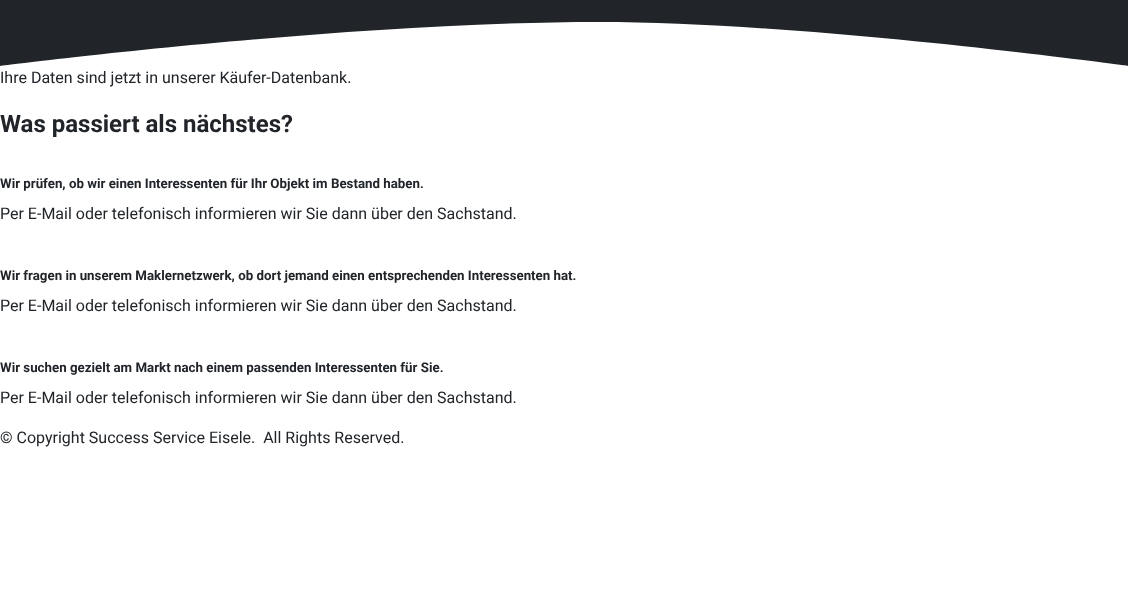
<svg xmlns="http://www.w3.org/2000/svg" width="1128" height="594">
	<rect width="100%" height="100%" fill="#FFFFFF" />
	<path d="M1128 66C1128 66 809 22 598 22C344 22 0 66 0 66V0H1128Z" fill="#212529" fill-rule="evenodd" />
	<text x="0" y="83" font-family="Roboto" font-size="16" fill="#212529">Ihre Daten sind jetzt in unserer Käufer-Datenbank.</text>
	<text x="0" y="132" font-family="Roboto" font-size="24" font-weight="700" fill="#212529">Was passiert als nächstes?</text>
	<text x="0" y="188" font-family="Roboto" font-size="13.3" font-weight="700" fill="#212529">Wir prüfen, ob wir einen Interessenten für Ihr Objekt im Bestand haben.</text>
	<text x="0" y="219" font-family="Roboto" font-size="16" fill="#212529">Per E-Mail oder telefonisch informieren wir Sie dann über den Sachstand.</text>
	<text x="0" y="280" font-family="Roboto" font-size="13.3" font-weight="700" fill="#212529">Wir fragen in unserem Maklernetzwerk, ob dort jemand einen entsprechenden Interessenten hat.</text>
	<text x="0" y="311" font-family="Roboto" font-size="16" fill="#212529">Per E-Mail oder telefonisch informieren wir Sie dann über den Sachstand.</text>
	<text x="0" y="372" font-family="Roboto" font-size="13.3" font-weight="700" fill="#212529">Wir suchen gezielt am Markt nach einem passenden Interessenten für Sie.</text>
	<g font-family="Roboto" font-size="16" fill="#212529">
		<text x="0" y="403">Per E-Mail oder telefonisch informieren wir Sie dann über den Sachstand.</text>
		<text x="0" y="443" xml:space="preserve">© Copyright Success Service Eisele.  All Rights Reserved.</text>
	</g>
</svg>
